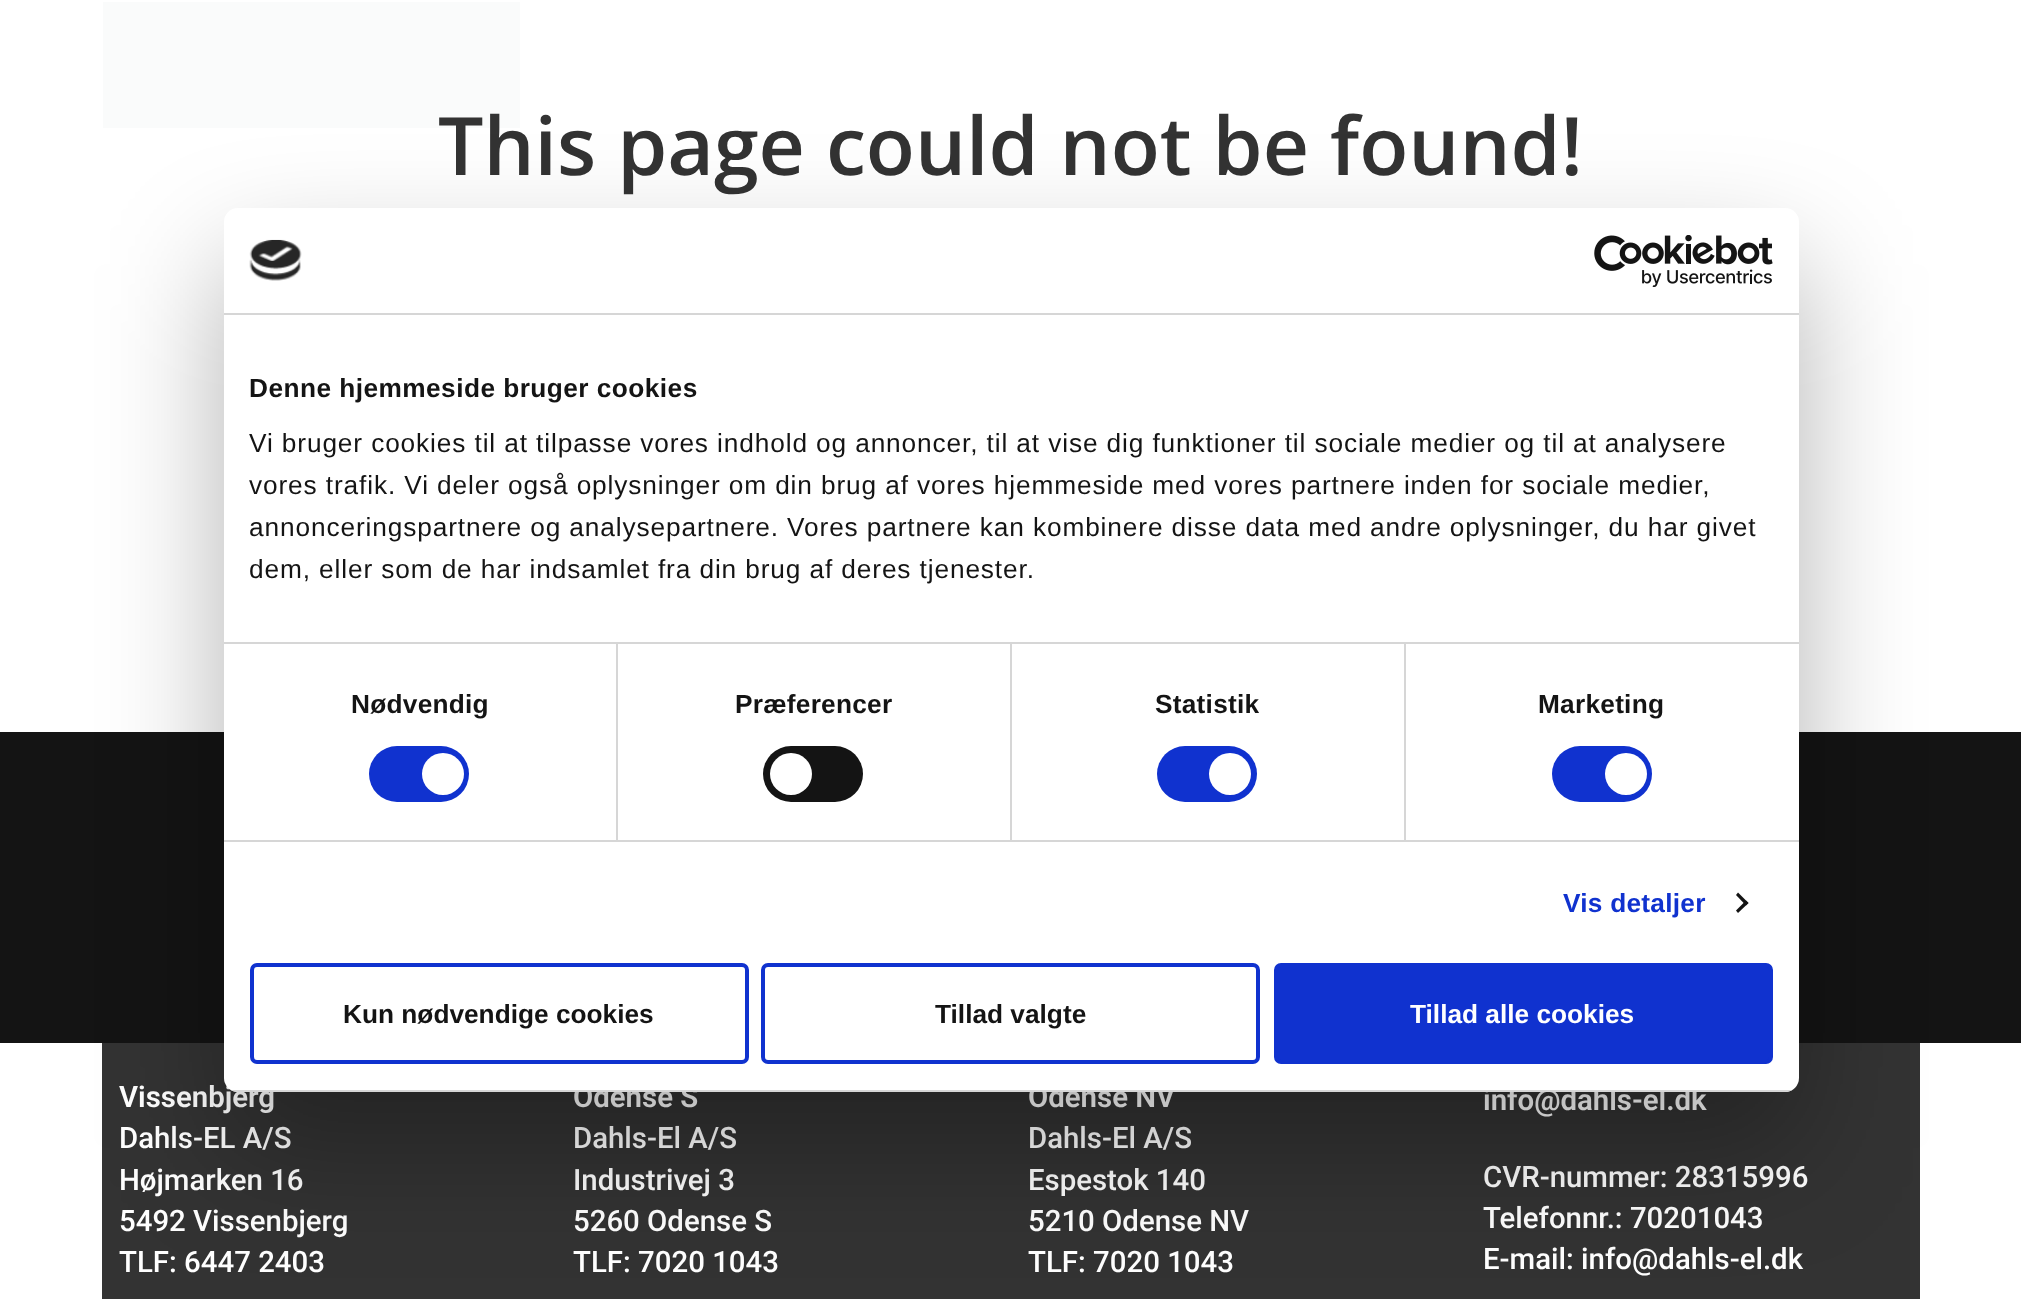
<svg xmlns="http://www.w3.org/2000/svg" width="2021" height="1299">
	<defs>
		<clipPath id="clip1"><rect x="224" y="208" width="1575" height="884" rx="14" /></clipPath>
	</defs>
	<rect width="100%" height="100%" fill="#FFFFFF" />
	<rect x="103" y="2" width="417" height="126" fill="#CFD4DB" fill-opacity="0.1" />
	<text x="438" y="175" font-family="Open Sans" font-size="80.5" font-weight="600" fill="#333333">This page could not be found!</text>
	<rect x="0" y="732" width="2021" height="311" fill="#141414" />
	<rect x="102" y="1043" width="1818" height="256" fill="#333333" />
	<text x="119" y="1107" font-family="Roboto" font-size="29.4" font-weight="600" fill="#FFFFFF">Vissenbjerg</text>
	<g font-family="Roboto" font-size="29.4" font-weight="500" fill="#FFFFFF">
		<text x="119" y="1148">Dahls-EL A/S</text>
		<text x="119" y="1190">Højmarken 16</text>
		<text x="119" y="1231">5492 Vissenbjerg</text>
		<text x="119" y="1272">TLF: 6447 2403</text>
	</g>
	<text x="573" y="1107" font-family="Roboto" font-size="29.4" font-weight="600" fill="#FFFFFF">Odense S</text>
	<g font-family="Roboto" font-size="29.4" font-weight="500" fill="#FFFFFF">
		<text x="573" y="1148">Dahls-El A/S</text>
		<text x="573" y="1190">Industrivej 3</text>
		<text x="573" y="1231">5260 Odense S</text>
		<text x="573" y="1272">TLF: 7020 1043</text>
	</g>
	<text x="1028" y="1107" font-family="Roboto" font-size="29.4" font-weight="600" fill="#FFFFFF">Odense NV</text>
	<g font-family="Roboto" font-size="29.4" font-weight="500" fill="#FFFFFF">
		<text x="1028" y="1148">Dahls-El A/S</text>
		<text x="1028" y="1190">Espestok 140</text>
		<text x="1028" y="1231">5210 Odense NV</text>
		<text x="1028" y="1272">TLF: 7020 1043</text>
	</g>
	<text x="1483" y="1110" font-family="Roboto" font-size="29.4" font-weight="600" fill="#FFFFFF">info@dahls-el.dk</text>
	<g font-family="Roboto" font-size="29.4" font-weight="500" fill="#FFFFFF">
		<text x="1483" y="1187">CVR-nummer: 28315996</text>
		<text x="1483" y="1228">Telefonnr.: 70201043</text>
		<text x="1483" y="1269">E-mail: info@dahls-el.dk</text>
	</g>
	<rect x="224" y="264" width="1575" height="884" rx="14" fill="#000000" fill-opacity="0.3" filter="blur(59.5px)" />
	<rect x="224" y="208" width="1575" height="884" rx="14" fill="#FFFFFF" />
	<rect x="224" y="313" width="1575" height="2" fill="#D6D6D6" />
	<image x="249" y="239" width="53" height="42" href="assets/img1.png" />
	<image x="1594" y="235" width="179" height="52" href="assets/img2.png" />
	<rect x="224" y="642" width="1575" height="2" fill="#D6D6D6" />
	<text x="249" y="397" font-family="Liberation Sans" font-size="26.25" font-weight="700" letter-spacing="0.45" fill="#141414">Denne hjemmeside bruger cookies</text>
	<g font-family="Liberation Sans" font-size="26.25" letter-spacing="0.88" fill="#141414">
		<text x="249" y="452">Vi bruger cookies til at tilpasse vores indhold og annoncer, til at vise dig funktioner til sociale medier og til at analysere</text>
		<text x="249" y="494">vores trafik. Vi deler også oplysninger om din brug af vores hjemmeside med vores partnere inden for sociale medier,</text>
		<text x="249" y="536">annonceringspartnere og analysepartnere. Vores partnere kan kombinere disse data med andre oplysninger, du har givet</text>
		<text x="249" y="578">dem, eller som de har indsamlet fra din brug af deres tjenester.</text>
	</g>
	<rect x="224" y="840" width="1575" height="2" fill="#D6D6D6" />
	<rect x="616" y="644" width="2" height="196" fill="#D6D6D6" />
	<text x="351" y="713" font-family="Liberation Sans" font-size="26.25" font-weight="700" letter-spacing="0.25" fill="#141414">Nødvendig</text>
	<rect x="369" y="746" width="100" height="56" rx="28" fill="#1032CF" />
	<circle cx="443" cy="774" r="21" fill="#FFFFFF" />
	<rect x="1010" y="644" width="2" height="196" fill="#D6D6D6" />
	<text x="735" y="713" font-family="Liberation Sans" font-size="26.25" font-weight="700" letter-spacing="0.25" fill="#141414">Præferencer</text>
	<rect x="763" y="746" width="100" height="56" rx="28" fill="#141414" />
	<circle cx="791" cy="774" r="21" fill="#FFFFFF" />
	<rect x="1404" y="644" width="2" height="196" fill="#D6D6D6" />
	<text x="1155" y="713" font-family="Liberation Sans" font-size="26.25" font-weight="700" letter-spacing="0.25" fill="#141414">Statistik</text>
	<rect x="1157" y="746" width="100" height="56" rx="28" fill="#1032CF" />
	<circle cx="1230" cy="774" r="21" fill="#FFFFFF" />
	<text x="1538" y="713" font-family="Liberation Sans" font-size="26.25" font-weight="700" letter-spacing="0.25" fill="#141414">Marketing</text>
	<rect x="1552" y="746" width="100" height="56" rx="28" fill="#1032CF" />
	<circle cx="1626" cy="774" r="21" fill="#FFFFFF" />
	<text x="1563" y="912" font-family="Liberation Sans" font-size="26.25" font-weight="700" letter-spacing="0.25" fill="#1032CF">Vis detaljer</text>
	<path d="M1738 892.5L1748.5 903L1746 905.5L1736 895Z" fill="#141414" />
	<path d="M1746 900.5L1748.5 903L1738 913L1736 910.5Z" fill="#141414" />
	<g clip-path="url(#clip1)">
		<rect x="224" y="1090" width="1575" height="2" fill="#D6D6D6" />
	</g>
	<rect x="252" y="965" width="495" height="97" rx="5" fill="none" stroke="#1032CF" stroke-width="4" />
	<text x="343" y="1023" font-family="Liberation Sans" font-size="26.25" font-weight="700" fill="#141414">Kun nødvendige cookies</text>
	<rect x="763" y="965" width="495" height="97" rx="5" fill="none" stroke="#1032CF" stroke-width="4" />
	<text x="935" y="1023" font-family="Liberation Sans" font-size="26.25" font-weight="700" fill="#141414">Tillad valgte</text>
	<rect x="1276" y="965" width="495" height="97" rx="5" fill="#1032CF" stroke="#1032CF" stroke-width="4" />
	<text x="1410" y="1023" font-family="Liberation Sans" font-size="26.25" font-weight="700" fill="#FFFFFF">Tillad alle cookies</text>
</svg>
